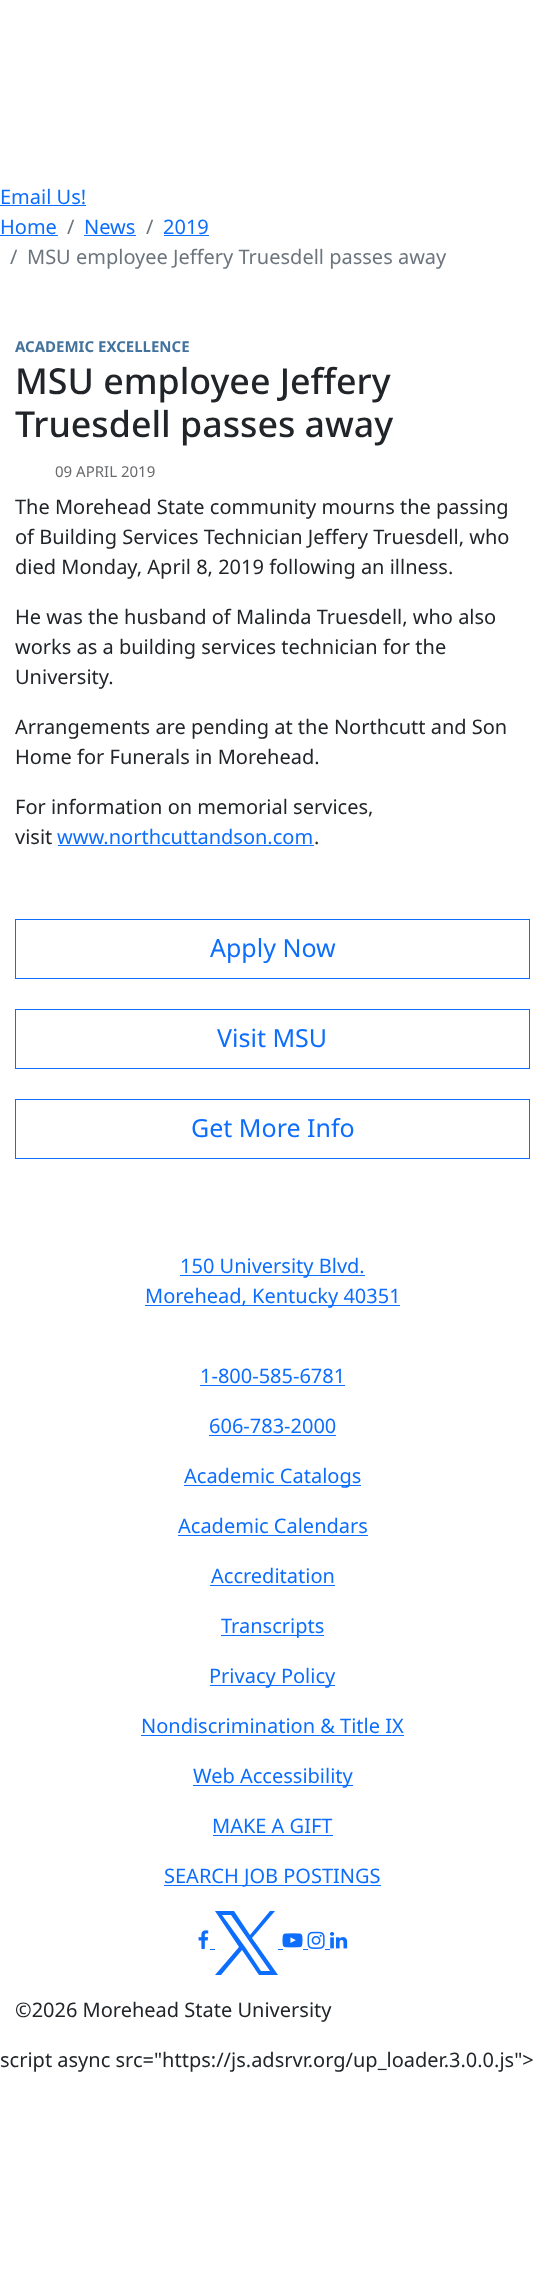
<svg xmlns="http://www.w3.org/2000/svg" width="545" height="2284">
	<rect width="100%" height="100%" fill="#FFFFFF" />
	<text x="0" y="204" font-family="Noto Sans" font-size="20" fill="#0D6EFD">Email Us!</text>
	<rect x="0" y="205" width="86" height="1" fill="#0D6EFD" />
	<text x="0" y="234" font-family="Noto Sans" font-size="20" fill="#0D6EFD">Home</text>
	<rect x="0" y="235" width="58" height="1" fill="#0D6EFD" />
	<text x="67" y="234" font-family="Noto Sans" font-size="20" fill="#6C757D">/</text>
	<text x="84" y="234" font-family="Noto Sans" font-size="20" fill="#0D6EFD">News</text>
	<rect x="84" y="235" width="52" height="1" fill="#0D6EFD" />
	<text x="146" y="234" font-family="Noto Sans" font-size="20" fill="#6C757D">/</text>
	<text x="163" y="234" font-family="Noto Sans" font-size="20" fill="#0D6EFD">2019</text>
	<rect x="164" y="235" width="45" height="1" fill="#0D6EFD" />
	<g font-family="Noto Sans" font-size="20" fill="#6C757D">
		<text x="10" y="264">/</text>
		<text x="27" y="264">MSU employee Jeffery Truesdell passes away</text>
	</g>
	<text x="15" y="352" font-family="Noto Sans" font-size="15" font-weight="700" fill="#43739C">ACADEMIC EXCELLENCE</text>
	<g font-family="Noto Sans" font-size="35.75" font-weight="500" fill="#212529">
		<text x="15" y="394">MSU employee Jeffery</text>
		<text x="15" y="437">Truesdell passes away</text>
	</g>
	<text x="55" y="477" font-family="Noto Sans" font-size="15" fill="#686A6D">09 APRIL 2019</text>
	<g font-family="Noto Sans" font-size="20" fill="#212529">
		<text x="15" y="514">The Morehead State community mourns the passing</text>
		<text x="15" y="544">of Building Services Technician Jeffery Truesdell, who</text>
		<text x="15" y="574">died Monday, April 8, 2019 following an illness.</text>
		<text x="15" y="624">He was the husband of Malinda Truesdell, who also</text>
		<text x="15" y="654">works as a building services technician for the</text>
		<text x="15" y="684">University.</text>
		<text x="15" y="734">Arrangements are pending at the Northcutt and Son</text>
		<text x="15" y="764">Home for Funerals in Morehead.</text>
		<text x="15" y="814">For information on memorial services,</text>
		<text x="15" y="844">visit</text>
	</g>
	<text x="57" y="844" font-family="Noto Sans" font-size="20" fill="#0D6EFD">www.northcuttandson.com</text>
	<rect x="58" y="845" width="256" height="1" fill="#0D6EFD" />
	<text x="314" y="844" font-family="Noto Sans" font-size="20" fill="#212529">.</text>
	<rect x="15.5" y="919.5" width="514" height="59" fill="none" stroke="#0D6EFD" />
	<text x="210" y="957" font-family="Noto Sans" font-size="25" fill="#0D6EFD">Apply Now</text>
	<rect x="15.5" y="1009.5" width="514" height="59" fill="none" stroke="#0D6EFD" />
	<text x="217" y="1047" font-family="Noto Sans" font-size="25" fill="#0D6EFD">Visit MSU</text>
	<rect x="15.5" y="1099.5" width="514" height="59" fill="none" stroke="#0D6EFD" />
	<text x="191" y="1137" font-family="Noto Sans" font-size="25" fill="#0D6EFD">Get More Info</text>
	<rect x="180" y="1275" width="185" height="1" fill="#0D6EFD" />
	<text x="180" y="1273" font-family="Noto Sans" font-size="20" fill="#0D6EFD">150 University Blvd.</text>
	<rect x="145" y="1305" width="255" height="1" fill="#0D6EFD" />
	<g font-family="Noto Sans" font-size="20" fill="#0D6EFD">
		<text x="145" y="1303">Morehead, Kentucky 40351</text>
		<text x="200" y="1383">1-800-585-6781</text>
	</g>
	<rect x="200" y="1385" width="145" height="1" fill="#0D6EFD" />
	<text x="209" y="1433" font-family="Noto Sans" font-size="20" fill="#0D6EFD">606-783-2000</text>
	<rect x="209" y="1435" width="127" height="1" fill="#0D6EFD" />
	<rect x="184" y="1485" width="177" height="1" fill="#0D6EFD" />
	<g font-family="Noto Sans" font-size="20" fill="#0D6EFD">
		<text x="184" y="1483">Academic Catalogs</text>
		<text x="178" y="1533">Academic Calendars</text>
	</g>
	<rect x="178" y="1535" width="190" height="1" fill="#0D6EFD" />
	<text x="211" y="1583" font-family="Noto Sans" font-size="20" fill="#0D6EFD">Accreditation</text>
	<rect x="210" y="1585" width="125" height="1" fill="#0D6EFD" />
	<rect x="221" y="1635" width="103" height="1" fill="#0D6EFD" />
	<text x="221" y="1633" font-family="Noto Sans" font-size="20" fill="#0D6EFD">Transcripts</text>
	<rect x="210" y="1685" width="125" height="1" fill="#0D6EFD" />
	<g font-family="Noto Sans" font-size="20" fill="#0D6EFD">
		<text x="209" y="1683">Privacy Policy</text>
		<text x="141" y="1733">Nondiscrimination &amp; Title IX</text>
	</g>
	<rect x="141" y="1735" width="263" height="1" fill="#0D6EFD" />
	<rect x="193" y="1785" width="160" height="1" fill="#0D6EFD" />
	<g font-family="Noto Sans" font-size="20" fill="#0D6EFD">
		<text x="193" y="1783">Web Accessibility</text>
		<text x="212" y="1833">MAKE A GIFT</text>
	</g>
	<rect x="213" y="1835" width="120" height="1" fill="#0D6EFD" />
	<rect x="164" y="1885" width="217" height="1" fill="#0D6EFD" />
	<text x="164" y="1883" font-family="Noto Sans" font-size="20" fill="#0D6EFD">SEARCH JOB POSTINGS</text>
	<image x="198" y="1930" width="11" height="19" href="assets/img1.png" />
	<rect x="210" y="1949" width="5" height="1" fill="#0D6EFD" />
	<path d="M252 1938L275 1911H270L250 1935L234 1911H215L239 1947L215 1975H221L242 1950L259 1975H278ZM245 1947L222 1915H231L270 1971H261Z" fill="#0D6EFD" />
	<rect x="278" y="1949" width="5" height="1" fill="#0D6EFD" />
	<image x="282" y="1933" width="21" height="15" href="assets/img2.png" />
	<rect x="303" y="1949" width="5" height="1" fill="#0D6EFD" />
	<image x="307" y="1931" width="18" height="18" href="assets/img3.png" />
	<rect x="325" y="1949" width="5" height="1" fill="#0D6EFD" />
	<image x="330" y="1932" width="18" height="17" href="assets/img4.png" />
	<g font-family="Noto Sans" font-size="20" fill="#212529">
		<text x="15" y="2017">©2026 Morehead State University</text>
		<text x="0" y="2067">script async src="https://js.adsrvr.org/up_loader.3.0.0.js"&gt;</text>
	</g>
</svg>
